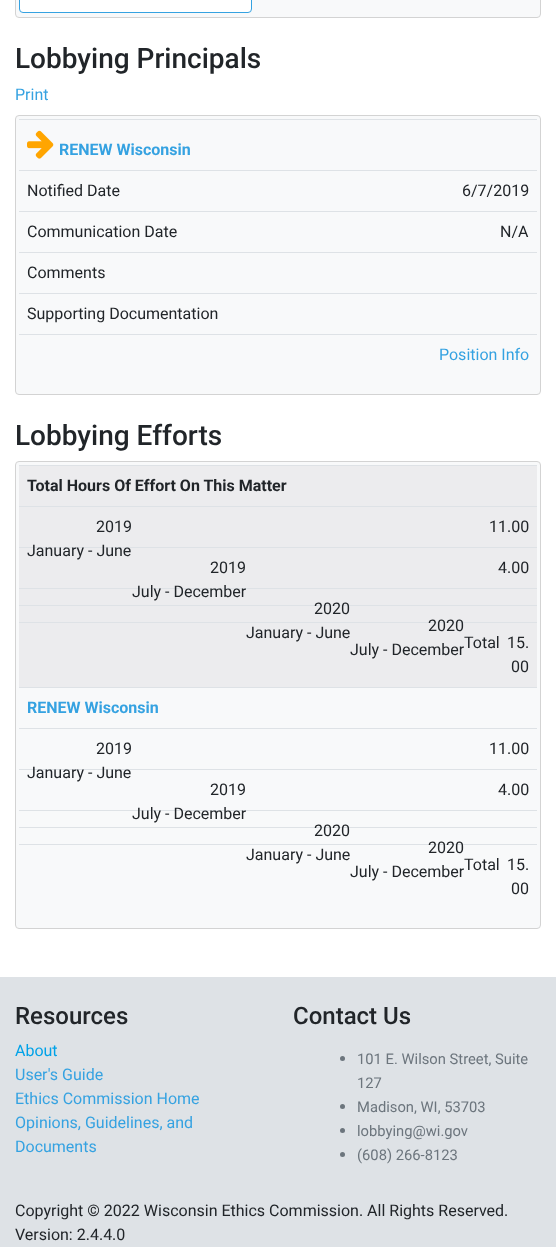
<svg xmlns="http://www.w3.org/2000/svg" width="556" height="1247">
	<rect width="100%" height="100%" fill="#FFFFFF" />
	<rect x="15.5" y="-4.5" width="525" height="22" rx="3.5" fill="#F8F9FA" stroke="#D3D3D3" />
	<rect x="19.5" y="-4.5" width="232" height="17" rx="3.5" fill="#FFFFFF" stroke="#35A2E1" />
	<text x="15" y="68" font-family="Roboto" font-size="28" font-weight="500" fill="#212529">Lobbying Principals</text>
	<text x="15" y="100" font-family="Roboto" font-size="16" fill="#35A2E1">Print</text>
	<rect x="15.5" y="115.5" width="525" height="279" rx="3.5" fill="#F8F9FA" stroke="#D3D3D3" />
	<rect x="19" y="119" width="518" height="1" fill="#DEE2E6" />
	<image x="27" y="130" width="27" height="29" href="assets/img1.png" />
	<text x="59" y="155" font-family="Roboto" font-size="16" font-weight="700" fill="#35A2E1">RENEW Wisconsin</text>
	<rect x="19" y="170" width="518" height="1" fill="#DEE2E6" />
	<g font-family="Roboto" font-size="16" fill="#212529">
		<text x="27" y="196">Notified Date</text>
		<text x="462" y="196">6/7/2019</text>
	</g>
	<rect x="19" y="211" width="518" height="1" fill="#DEE2E6" />
	<g font-family="Roboto" font-size="16" fill="#212529">
		<text x="27" y="237">Communication Date</text>
		<text x="500" y="237">N/A</text>
	</g>
	<rect x="19" y="252" width="518" height="1" fill="#DEE2E6" />
	<text x="27" y="278" font-family="Roboto" font-size="16" fill="#212529">Comments</text>
	<rect x="19" y="293" width="518" height="1" fill="#DEE2E6" />
	<text x="27" y="319" font-family="Roboto" font-size="16" fill="#212529">Supporting Documentation</text>
	<rect x="19" y="334" width="518" height="1" fill="#DEE2E6" />
	<text x="439" y="360" font-family="Roboto" font-size="16" fill="#35A2E1">Position Info</text>
	<text x="15" y="445" font-family="Roboto" font-size="28" font-weight="500" fill="#212529">Lobbying Efforts</text>
	<rect x="15.5" y="461.5" width="525" height="467" rx="3.5" fill="#F8F9FA" stroke="#D3D3D3" />
	<rect x="19" y="466" width="518" height="221" fill="#ECECEE" />
	<rect x="19" y="465" width="518" height="1" fill="#DEE2E6" />
	<text x="27" y="491" font-family="Roboto" font-size="16" font-weight="700" fill="#212529">Total Hours Of Effort On This Matter</text>
	<rect x="19" y="506" width="518" height="1" fill="#DEE2E6" />
	<text x="96" y="532" font-family="Roboto" font-size="16" fill="#212529">2019</text>
	<rect x="19" y="547" width="518" height="1" fill="#DEE2E6" />
	<g font-family="Roboto" font-size="16" fill="#212529">
		<text x="27" y="556">January - June</text>
		<text x="489" y="532">11.00</text>
		<text x="210" y="573">2019</text>
	</g>
	<rect x="19" y="588" width="518" height="1" fill="#DEE2E6" />
	<g font-family="Roboto" font-size="16" fill="#212529">
		<text x="132" y="597">July - December</text>
		<text x="498" y="573">4.00</text>
	</g>
	<rect x="19" y="605" width="518" height="1" fill="#DEE2E6" />
	<g font-family="Roboto" font-size="16" fill="#212529">
		<text x="314" y="614">2020</text>
		<text x="246" y="638">January - June</text>
	</g>
	<rect x="19" y="622" width="518" height="1" fill="#DEE2E6" />
	<g font-family="Roboto" font-size="16" fill="#212529">
		<text x="428" y="631">2020</text>
		<text x="350" y="655">July - December</text>
		<text x="464" y="648">Total</text>
		<text x="507" y="648">15.</text>
		<text x="511" y="672">00</text>
	</g>
	<rect x="19" y="687" width="518" height="1" fill="#DEE2E6" />
	<text x="27" y="713" font-family="Roboto" font-size="16" font-weight="700" fill="#35A2E1">RENEW Wisconsin</text>
	<rect x="19" y="728" width="518" height="1" fill="#DEE2E6" />
	<text x="96" y="754" font-family="Roboto" font-size="16" fill="#212529">2019</text>
	<rect x="19" y="769" width="518" height="1" fill="#DEE2E6" />
	<g font-family="Roboto" font-size="16" fill="#212529">
		<text x="27" y="778">January - June</text>
		<text x="489" y="754">11.00</text>
		<text x="210" y="795">2019</text>
	</g>
	<rect x="19" y="810" width="518" height="1" fill="#DEE2E6" />
	<g font-family="Roboto" font-size="16" fill="#212529">
		<text x="132" y="819">July - December</text>
		<text x="498" y="795">4.00</text>
	</g>
	<rect x="19" y="827" width="518" height="1" fill="#DEE2E6" />
	<g font-family="Roboto" font-size="16" fill="#212529">
		<text x="314" y="836">2020</text>
		<text x="246" y="860">January - June</text>
	</g>
	<rect x="19" y="844" width="518" height="1" fill="#DEE2E6" />
	<g font-family="Roboto" font-size="16" fill="#212529">
		<text x="428" y="853">2020</text>
		<text x="350" y="877">July - December</text>
		<text x="464" y="870">Total</text>
		<text x="507" y="870">15.</text>
		<text x="511" y="894">00</text>
	</g>
	<rect x="0" y="977" width="556" height="270" fill="#DEE2E6" />
	<text x="15" y="1024" font-family="Roboto" font-size="24" font-weight="500" fill="#212529">Resources</text>
	<text x="15" y="1056" font-family="Roboto" font-size="16" fill="#00A2E8">About</text>
	<g font-family="Roboto" font-size="16" fill="#35A2E1">
		<text x="15" y="1080">User's Guide</text>
		<text x="15" y="1104">Ethics Commission Home</text>
		<text x="15" y="1128">Opinions, Guidelines, and</text>
		<text x="15" y="1152">Documents</text>
	</g>
	<text x="293" y="1024" font-family="Roboto" font-size="24" font-weight="500" fill="#212529">Contact Us</text>
	<circle cx="342.5" cy="1058.5" r="2.5" fill="#6C757D" />
	<g font-family="Roboto" font-size="14.75" fill="#6C757D">
		<text x="357" y="1064">101 E. Wilson Street, Suite</text>
		<text x="357" y="1088">127</text>
	</g>
	<circle cx="342.5" cy="1106.5" r="2.5" fill="#6C757D" />
	<text x="357" y="1112" font-family="Roboto" font-size="14.75" fill="#6C757D">Madison, WI, 53703</text>
	<circle cx="342.5" cy="1130.5" r="2.5" fill="#6C757D" />
	<text x="357" y="1136" font-family="Roboto" font-size="14.75" fill="#6C757D">lobbying@wi.gov</text>
	<circle cx="342.5" cy="1154.5" r="2.5" fill="#6C757D" />
	<text x="357" y="1160" font-family="Roboto" font-size="14.75" fill="#6C757D">(608) 266-8123</text>
	<g font-family="Roboto" font-size="16" fill="#212529">
		<text x="15" y="1216">Copyright © 2022 Wisconsin Ethics Commission. All Rights Reserved.</text>
		<text x="15" y="1240">Version: 2.4.4.0</text>
	</g>
</svg>
